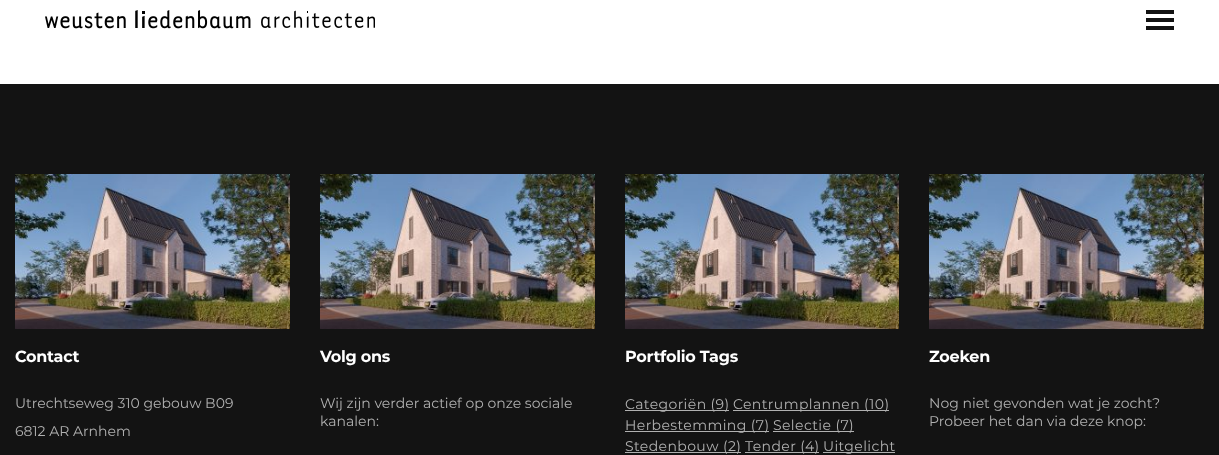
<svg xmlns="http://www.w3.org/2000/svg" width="1219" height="455">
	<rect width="100%" height="100%" fill="#FFFFFF" />
	<image x="45" y="10" width="330" height="19" href="assets/img1.png" />
	<rect x="1146" y="10" width="28" height="4" fill="#121212" />
	<rect x="1146" y="18" width="28" height="4" fill="#121212" />
	<rect x="1146" y="26" width="28" height="4" fill="#121212" />
	<rect x="0" y="84" width="1219" height="371" fill="#131313" />
	<image x="15" y="174" width="275" height="155" href="assets/img2.png" />
	<text x="15" y="362" font-family="Montserrat" font-size="16" font-weight="700" letter-spacing="-0.25" fill="#FFFFFF">Contact</text>
	<g font-family="Montserrat" font-size="14" fill="#B1B1B1">
		<text x="15" y="408">Utrechtseweg 310 gebouw B09</text>
		<text x="15" y="436">6812 AR Arnhem</text>
	</g>
	<image x="320" y="174" width="275" height="155" href="assets/img2.png" />
	<text x="320" y="362" font-family="Montserrat" font-size="16" font-weight="700" letter-spacing="-0.25" fill="#FFFFFF">Volg ons</text>
	<g font-family="Montserrat" font-size="14" fill="#B1B1B1">
		<text x="320" y="408">Wij zijn verder actief op onze sociale</text>
		<text x="320" y="426">kanalen:</text>
	</g>
	<image x="625" y="174" width="274" height="155" href="assets/img3.png" />
	<text x="625" y="362" font-family="Montserrat" font-size="16" font-weight="700" letter-spacing="-0.25" fill="#FFFFFF">Portfolio Tags</text>
	<rect x="625" y="410" width="104" height="1" fill="#B1B1B1" />
	<text x="625" y="409" font-family="Montserrat" font-size="14" letter-spacing="0.4" fill="#B1B1B1">Categoriën (9)</text>
	<rect x="733" y="410" width="156" height="1" fill="#B1B1B1" />
	<text x="733" y="409" font-family="Montserrat" font-size="14" letter-spacing="0.4" fill="#B1B1B1">Centrumplannen (10)</text>
	<rect x="625" y="431" width="144" height="1" fill="#B1B1B1" />
	<text x="625" y="430" font-family="Montserrat" font-size="14" letter-spacing="0.4" fill="#B1B1B1">Herbestemming (7)</text>
	<rect x="773" y="431" width="81" height="1" fill="#B1B1B1" />
	<text x="773" y="430" font-family="Montserrat" font-size="14" letter-spacing="0.4" fill="#B1B1B1">Selectie (7)</text>
	<rect x="625" y="452" width="116" height="1" fill="#B1B1B1" />
	<text x="625" y="451" font-family="Montserrat" font-size="14" letter-spacing="0.4" fill="#B1B1B1">Stedenbouw (2)</text>
	<rect x="745" y="452" width="74" height="1" fill="#B1B1B1" />
	<text x="745" y="451" font-family="Montserrat" font-size="14" letter-spacing="0.4" fill="#B1B1B1">Tender (4)</text>
	<rect x="823" y="452" width="72" height="1" fill="#B1B1B1" />
	<text x="823" y="451" font-family="Montserrat" font-size="14" letter-spacing="0.4" fill="#B1B1B1">Uitgelicht</text>
	<image x="929" y="174" width="275" height="155" href="assets/img2.png" />
	<text x="929" y="362" font-family="Montserrat" font-size="16" font-weight="700" letter-spacing="-0.25" fill="#FFFFFF">Zoeken</text>
	<g font-family="Montserrat" font-size="14" fill="#B1B1B1">
		<text x="929" y="408">Nog niet gevonden wat je zocht?</text>
		<text x="929" y="426">Probeer het dan via deze knop:</text>
	</g>
</svg>
